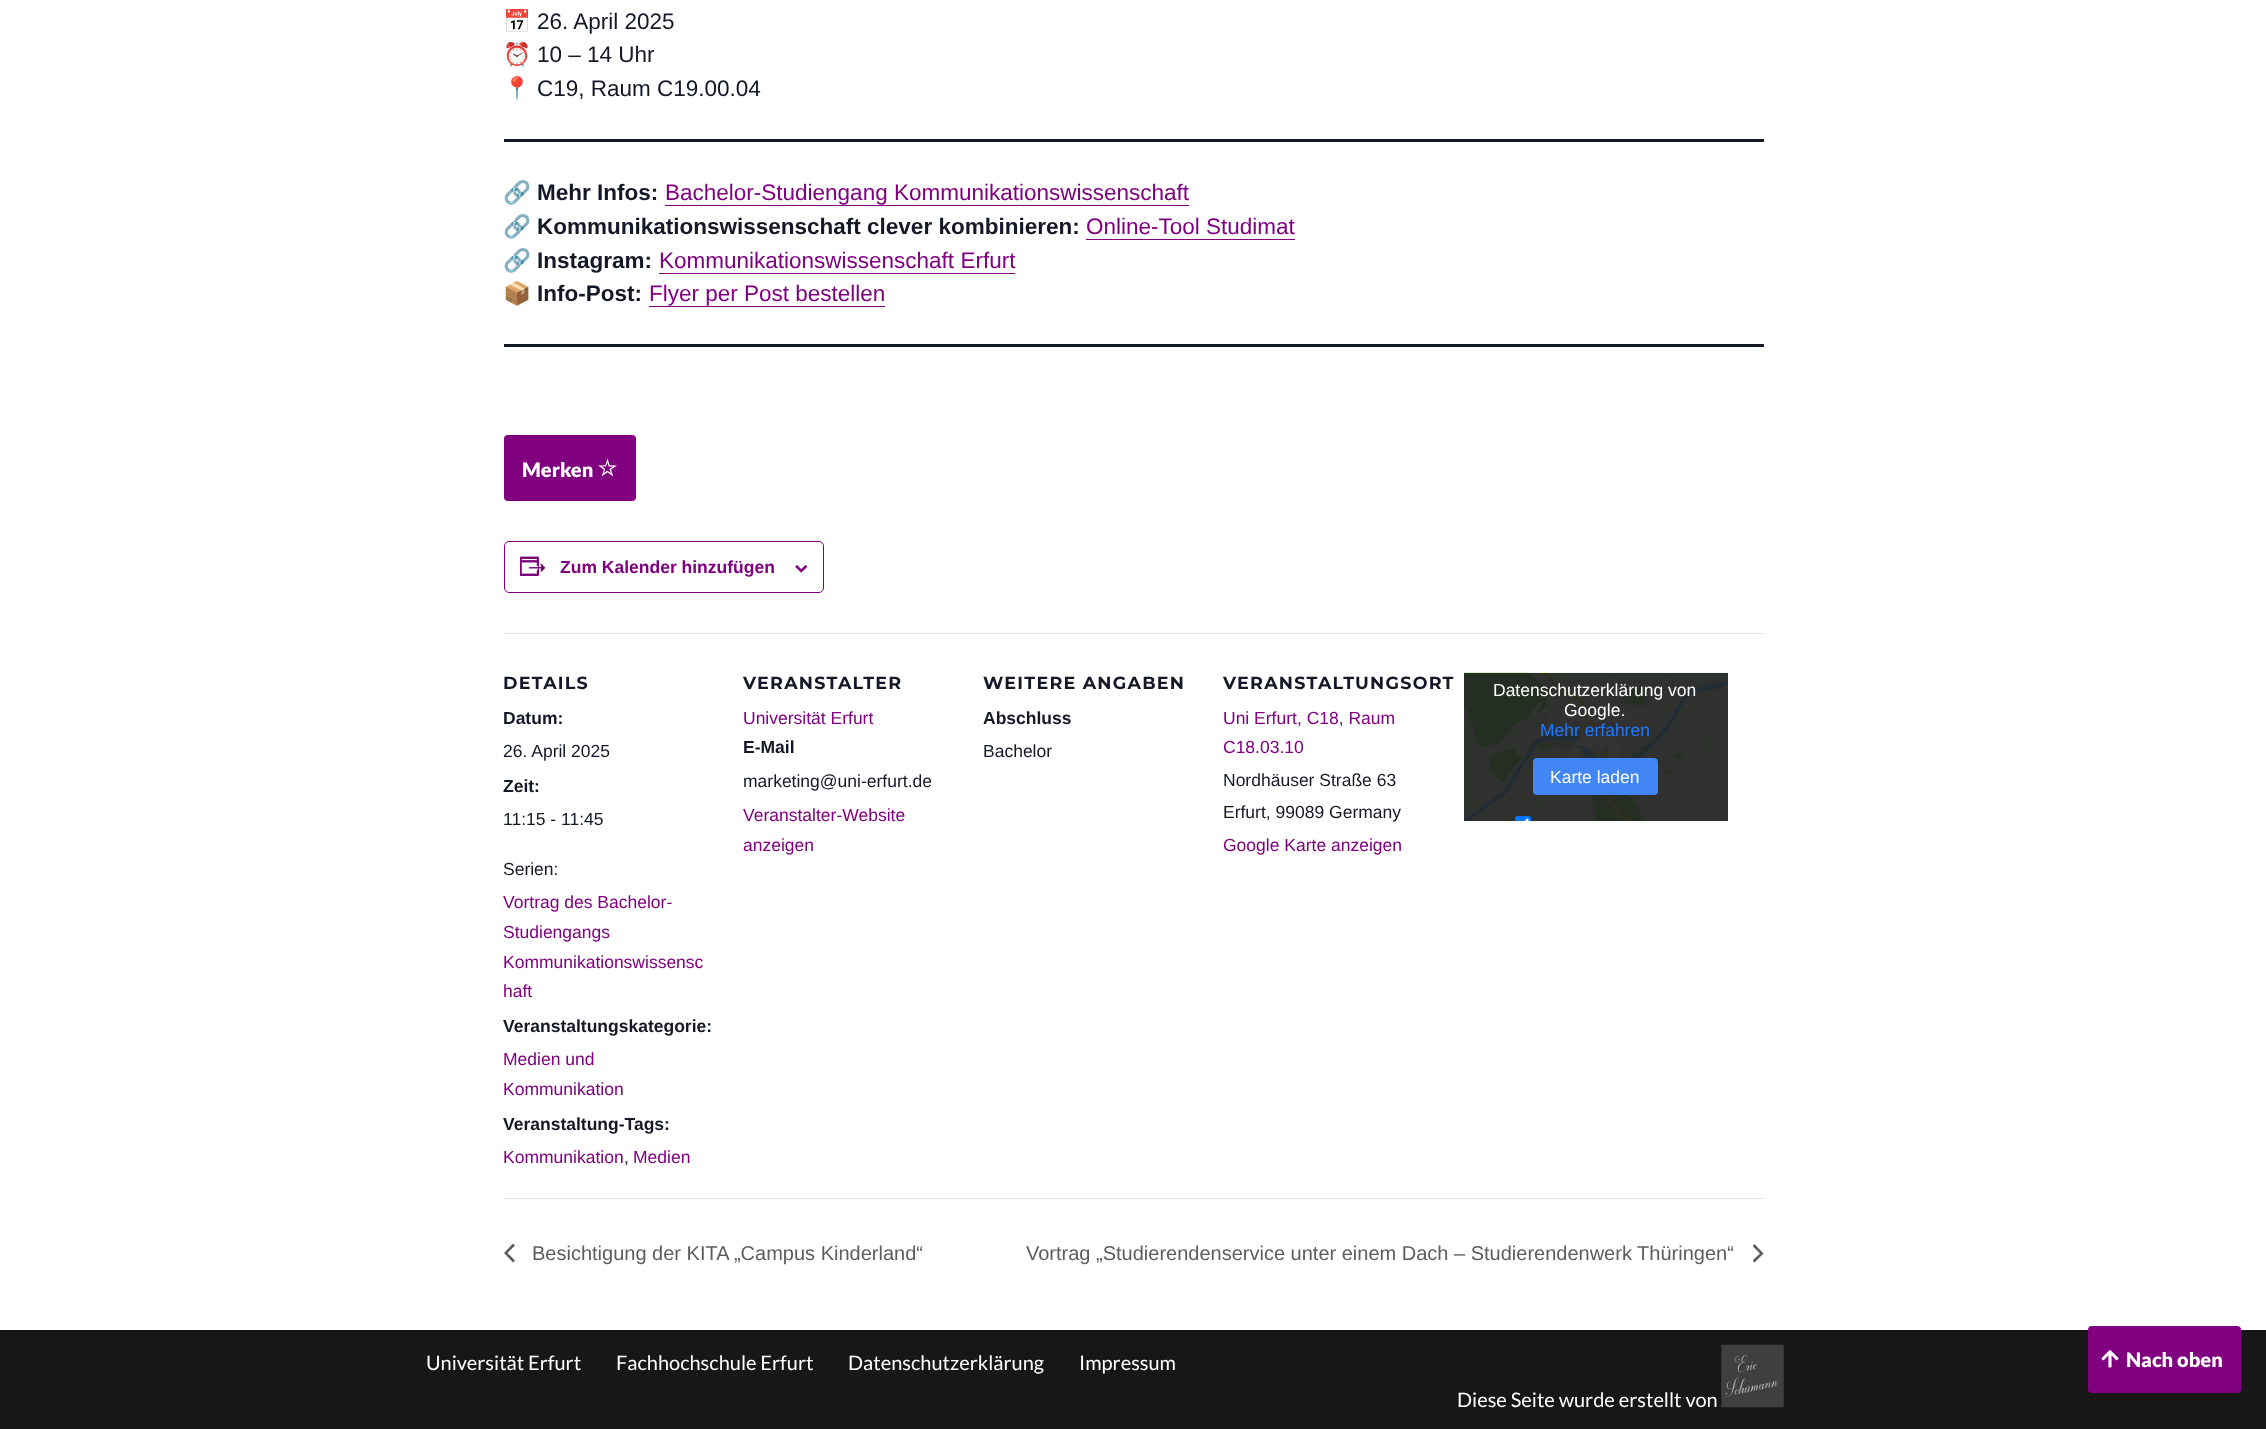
<svg xmlns="http://www.w3.org/2000/svg" width="2266" height="1429">
	<defs>
		<clipPath id="clip1"><rect x="504" y="0" width="1260" height="1198" /></clipPath>
		<clipPath id="clip2"><rect x="1464" y="673" width="264" height="148" /></clipPath>
		<clipPath id="clip3"><rect x="1753" y="1244" width="11" height="19" /></clipPath>
	</defs>
	<rect width="100%" height="100%" fill="#FFFFFF" />
	<rect x="1727" y="673" width="1" height="148" fill="#333333" />
	<g clip-path="url(#clip1)">
		<text x="503" y="29" font-family="Noto Color Emoji" font-size="22.5" fill="#141827">📅</text>
	</g>
	<text x="537" y="29" font-family="Liberation Sans" font-size="22.5" fill="#141827">26. April 2025</text>
	<g clip-path="url(#clip1)">
		<text x="503" y="62" font-family="Noto Color Emoji" font-size="22.5" fill="#141827">⏰</text>
	</g>
	<text x="537" y="62" font-family="Liberation Sans" font-size="22.5" fill="#141827">10 – 14 Uhr</text>
	<g clip-path="url(#clip1)">
		<text x="503" y="96" font-family="Noto Color Emoji" font-size="22.5" fill="#141827">📍</text>
	</g>
	<text x="537" y="96" font-family="Liberation Sans" font-size="22.5" fill="#141827">C19, Raum C19.00.04</text>
	<rect x="504" y="139" width="1260" height="3" fill="#141827" />
	<g clip-path="url(#clip1)">
		<text x="503" y="200" font-family="Noto Color Emoji" font-size="22.5" font-weight="700" fill="#800080">🔗</text>
	</g>
	<text x="537" y="200" font-family="Liberation Sans" font-size="22.5" font-weight="700" fill="#141827">Mehr Infos:</text>
	<text x="665" y="200" font-family="Liberation Sans" font-size="22.5" fill="#800080">Bachelor-Studiengang Kommunikationswissenschaft</text>
	<rect x="665" y="205" width="524" height="1" fill="#800080" />
	<g clip-path="url(#clip1)">
		<text x="503" y="234" font-family="Noto Color Emoji" font-size="22.5" font-weight="700" fill="#800080">🔗</text>
	</g>
	<text x="537" y="234" font-family="Liberation Sans" font-size="22.5" font-weight="700" fill="#141827">Kommunikationswissenschaft clever kombinieren:</text>
	<text x="1086" y="234" font-family="Liberation Sans" font-size="22.5" fill="#800080">Online-Tool Studimat</text>
	<rect x="1086" y="239" width="209" height="1" fill="#800080" />
	<g clip-path="url(#clip1)">
		<text x="503" y="268" font-family="Noto Color Emoji" font-size="22.5" font-weight="700" fill="#800080">🔗</text>
	</g>
	<text x="537" y="268" font-family="Liberation Sans" font-size="22.5" font-weight="700" fill="#141827">Instagram:</text>
	<text x="659" y="268" font-family="Liberation Sans" font-size="22.5" fill="#800080">Kommunikationswissenschaft Erfurt</text>
	<rect x="659" y="273" width="356" height="1" fill="#800080" />
	<g clip-path="url(#clip1)">
		<text x="503" y="301" font-family="Noto Color Emoji" font-size="22.5" fill="#800080">📦</text>
	</g>
	<text x="537" y="301" font-family="Liberation Sans" font-size="22.5" font-weight="700" fill="#141827">Info-Post:</text>
	<text x="649" y="301" font-family="Liberation Sans" font-size="22.5" fill="#800080">Flyer per Post bestellen</text>
	<rect x="649" y="306" width="236" height="1" fill="#800080" />
	<rect x="504" y="344" width="1260" height="3" fill="#141827" />
	<rect x="504" y="435" width="132" height="66" rx="4" fill="#800080" />
	<text x="522" y="477" font-family="Lato" font-size="20" font-weight="900" fill="#FFFFFF">Merken</text>
	<image x="598" y="458" width="19" height="19" href="assets/img1.png" />
	<rect x="504.5" y="541.5" width="319" height="51" rx="4.5" fill="none" stroke="#800080" />
	<image x="520" y="556" width="26" height="20" href="assets/img2.png" />
	<text x="560" y="573" font-family="Liberation Sans" font-size="17.5" font-weight="700" fill="#800080">Zum Kalender hinzufügen</text>
	<image x="795" y="565" width="13" height="8" href="assets/img3.png" />
	<rect x="504" y="633" width="1260" height="1" fill="#E4E4E4" />
	<text x="503" y="689" font-family="Montserrat" font-size="17.5" font-weight="700" letter-spacing="1.25" fill="#141827">DETAILS</text>
	<text x="503" y="724" font-family="Liberation Sans" font-size="17.5" font-weight="700" fill="#141827">Datum:</text>
	<text x="503" y="757" font-family="Liberation Sans" font-size="17.5" fill="#141827">26. April 2025</text>
	<text x="503" y="792" font-family="Liberation Sans" font-size="17.5" font-weight="700" fill="#141827">Zeit:</text>
	<g font-family="Liberation Sans" font-size="17.5" fill="#141827">
		<text x="503" y="825">11:15 - 11:45</text>
		<text x="503" y="875">Serien:</text>
	</g>
	<g font-family="Liberation Sans" font-size="17.5" fill="#800080">
		<text x="503" y="908">Vortrag des Bachelor-</text>
		<text x="503" y="938">Studiengangs</text>
		<text x="503" y="968">Kommunikationswissensc</text>
		<text x="503" y="997">haft</text>
	</g>
	<text x="503" y="1032" font-family="Liberation Sans" font-size="17.5" font-weight="700" fill="#141827">Veranstaltungskategorie:</text>
	<g font-family="Liberation Sans" font-size="17.5" fill="#800080">
		<text x="503" y="1065">Medien und</text>
		<text x="503" y="1095">Kommunikation</text>
	</g>
	<text x="503" y="1130" font-family="Liberation Sans" font-size="17.5" font-weight="700" fill="#141827">Veranstaltung-Tags:</text>
	<text x="503" y="1163" font-family="Liberation Sans" font-size="17.5" fill="#800080">Kommunikation</text>
	<text x="624" y="1163" font-family="Liberation Sans" font-size="17.5" fill="#141827">,</text>
	<text x="633" y="1163" font-family="Liberation Sans" font-size="17.5" fill="#800080">Medien</text>
	<text x="743" y="689" font-family="Montserrat" font-size="17.5" font-weight="700" letter-spacing="1.25" fill="#141827">VERANSTALTER</text>
	<text x="743" y="724" font-family="Liberation Sans" font-size="17.5" fill="#800080">Universität Erfurt</text>
	<text x="743" y="753" font-family="Liberation Sans" font-size="17.5" font-weight="700" fill="#141827">E-Mail</text>
	<text x="743" y="787" font-family="Liberation Sans" font-size="17.5" fill="#141827">marketing@uni-erfurt.de</text>
	<g font-family="Liberation Sans" font-size="17.5" fill="#800080">
		<text x="743" y="821">Veranstalter-Website</text>
		<text x="743" y="851">anzeigen</text>
	</g>
	<text x="983" y="689" font-family="Montserrat" font-size="17.5" font-weight="700" letter-spacing="1.25" fill="#141827">WEITERE ANGABEN</text>
	<text x="983" y="724" font-family="Liberation Sans" font-size="17.5" font-weight="700" fill="#141827">Abschluss</text>
	<text x="983" y="757" font-family="Liberation Sans" font-size="17.5" fill="#141827">Bachelor</text>
	<text x="1223" y="689" font-family="Montserrat" font-size="17.5" font-weight="700" letter-spacing="1.25" fill="#141827">VERANSTALTUNGSORT</text>
	<g font-family="Liberation Sans" font-size="17.5" fill="#800080">
		<text x="1223" y="724">Uni Erfurt, C18, Raum</text>
		<text x="1223" y="753">C18.03.10</text>
	</g>
	<g font-family="Liberation Sans" font-size="17.5" fill="#141827">
		<text x="1223" y="786">Nordhäuser Straße 63</text>
		<text x="1223" y="818">Erfurt, 99089 Germany</text>
	</g>
	<text x="1223" y="851" font-family="Liberation Sans" font-size="17.5" fill="#800080">Google Karte anzeigen</text>
	<image x="1463" y="672" width="265" height="149" href="assets/img4.png" />
	<g font-family="Liberation Sans" font-size="17.5" fill="#FFFFFF">
		<text x="1493" y="696">Datenschutzerklärung von</text>
		<text x="1564" y="716">Google.</text>
	</g>
	<text x="1540" y="736" font-family="Liberation Sans" font-size="17.5" fill="#2277FF">Mehr erfahren</text>
	<rect x="1533" y="758" width="125" height="37" rx="4" fill="#4285F4" />
	<text x="1550" y="783" font-family="Liberation Sans" font-size="17.5" fill="#FFFFFF">Karte laden</text>
	<path d="M1517.5 816H1528.5C1530 816 1531 817 1531 818.5V821H1515V818.5C1515 817 1516 816 1517.5 816Z" fill="#0075FF" />
	<g clip-path="url(#clip2)">
		<path d="M1518 824L1521.5 827.5L1528 819" fill="none" stroke="#FFFFFF" stroke-width="2.6" />
	</g>
	<rect x="504" y="1198" width="1260" height="1" fill="#E4E4E4" />
	<path d="M515 1260.5L513 1262.5L504 1253L513 1243.5L515 1245.5L507.5 1253Z" fill="#5D5D5D" />
	<g font-family="Liberation Sans" font-size="20" fill="#5D5D5D">
		<text x="532" y="1260">Besichtigung der KITA „Campus Kinderland“</text>
		<text x="1026" y="1260">Vortrag „Studierendenservice unter einem Dach – Studierendenwerk Thüringen“</text>
	</g>
	<g clip-path="url(#clip3)">
		<path d="M1752.5 1246L1754.5 1244L1763.5 1253.5L1754.5 1262.5L1752.5 1260.5L1760 1253.5Z" fill="#5D5D5D" />
	</g>
	<rect x="0" y="1330" width="2266" height="99" fill="#171717" />
	<g font-family="Lato" font-size="20" fill="#FFFFFF">
		<text x="426" y="1370">Universität Erfurt</text>
		<text x="616" y="1370">Fachhochschule Erfurt</text>
		<text x="848" y="1370">Datenschutzerklärung</text>
		<text x="1079" y="1370">Impressum</text>
		<text x="1457" y="1407">Diese Seite wurde erstellt von</text>
	</g>
	<image x="1721" y="1344" width="63" height="64" href="assets/img5.png" />
	<rect x="2088" y="1326" width="153" height="67" rx="4" fill="#800080" />
	<image x="2101" y="1350" width="18" height="18" href="assets/img6.png" />
	<text x="2126" y="1367" font-family="Lato" font-size="20" font-weight="900" fill="#FFFFFF">Nach oben</text>
</svg>
